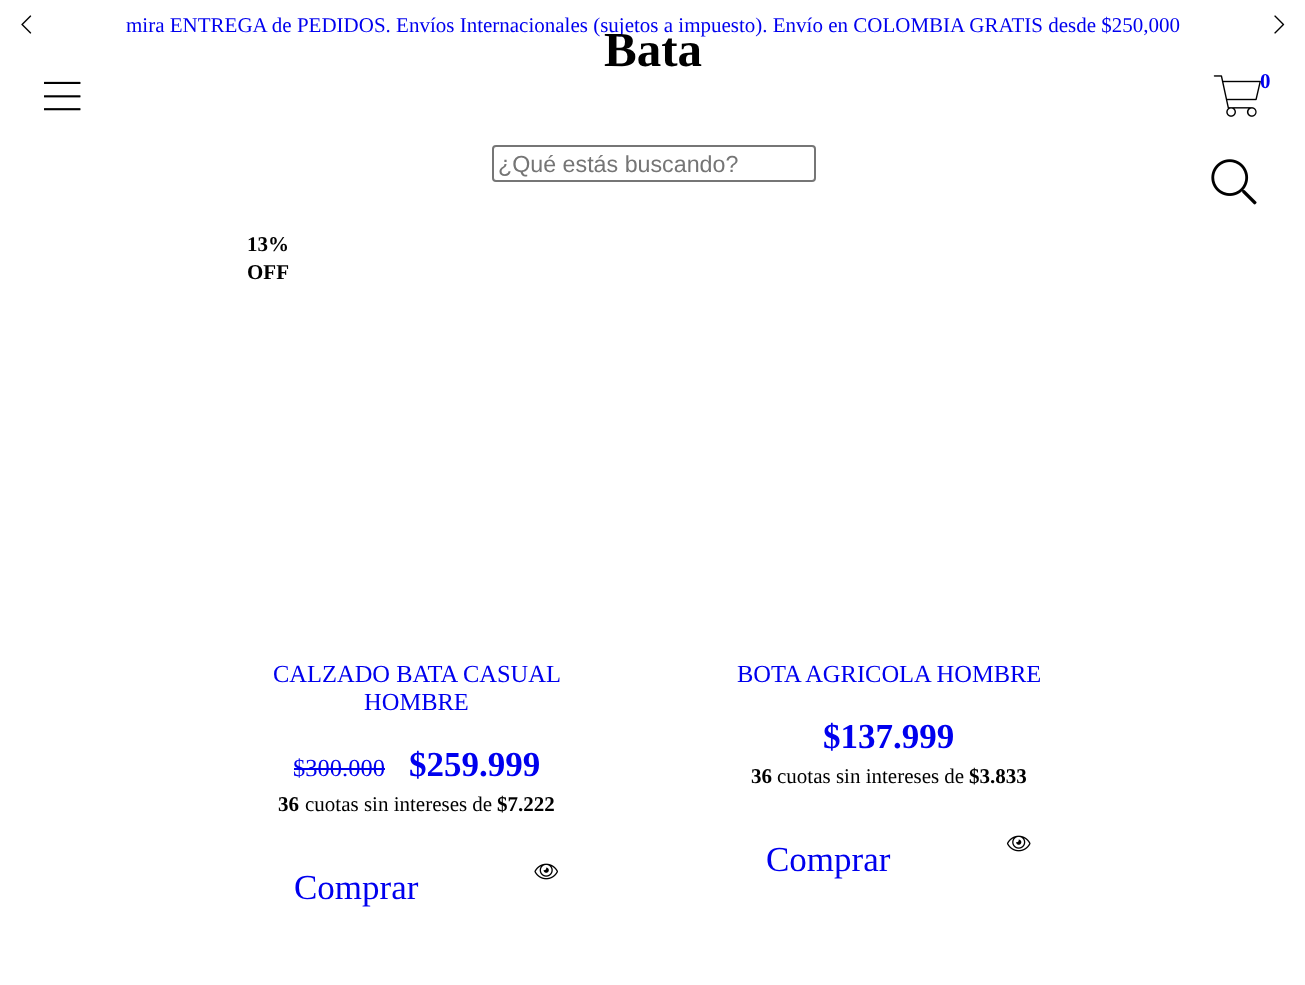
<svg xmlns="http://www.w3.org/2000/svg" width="1305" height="985">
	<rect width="100%" height="100%" fill="#FFFFFF" />
	<image x="21" y="15" width="11" height="19" href="assets/img1.png" />
	<text x="126" y="32" font-family="Liberation Serif" font-size="21" fill="#0000EE">mira ENTREGA de PEDIDOS. Envíos Internacionales (sujetos a impuesto). Envío en COLOMBIA GRATIS desde $250,000</text>
	<image x="1274" y="15" width="11" height="19" href="assets/img2.png" />
	<image x="44" y="81" width="37" height="30" href="assets/img3.png" />
	<image x="1213" y="75" width="48" height="42" href="assets/img4.png" />
	<text x="1260" y="88" font-family="Liberation Serif" font-size="21" font-weight="700" fill="#0000EE">0</text>
	<rect x="493" y="146" width="322" height="35" rx="3" fill="none" stroke="#767676" stroke-width="2" />
	<text x="498" y="172" font-family="Liberation Sans" font-size="23.25" fill="#757575">¿Qué estás buscando?</text>
	<image x="1211" y="159" width="46" height="46" href="assets/img5.png" />
	<text x="604" y="66" font-family="Liberation Serif" font-size="49" font-weight="700" fill="#000000">Bata</text>
	<g font-family="Liberation Serif" font-size="21" font-weight="700" fill="#000000">
		<text x="247" y="251">13%</text>
		<text x="247" y="279">OFF</text>
	</g>
	<g font-family="Liberation Serif" font-size="24.5" fill="#0000EE">
		<text x="273" y="682">CALZADO BATA CASUAL</text>
		<text x="364" y="710">HOMBRE</text>
		<text x="293" y="776">$300.000</text>
	</g>
	<rect x="294" y="768" width="91" height="2" fill="#0000EE" />
	<text x="409" y="776" font-family="Liberation Serif" font-size="35" font-weight="700" fill="#0000EE">$259.999</text>
	<text x="278" y="811" font-family="Liberation Serif" font-size="21" font-weight="700" fill="#000000">36</text>
	<text x="305" y="811" font-family="Liberation Serif" font-size="21" fill="#000000">cuotas sin intereses de</text>
	<text x="497" y="811" font-family="Liberation Serif" font-size="21" font-weight="700" fill="#000000">$7.222</text>
	<image x="534" y="863" width="24" height="17" href="assets/img6.png" />
	<text x="294" y="899" font-family="Liberation Serif" font-size="35" fill="#0000EE">Comprar</text>
	<text x="737" y="682" font-family="Liberation Serif" font-size="24.5" fill="#0000EE">BOTA AGRICOLA HOMBRE</text>
	<text x="823" y="748" font-family="Liberation Serif" font-size="35" font-weight="700" fill="#0000EE">$137.999</text>
	<text x="751" y="783" font-family="Liberation Serif" font-size="21" font-weight="700" fill="#000000">36</text>
	<text x="777" y="783" font-family="Liberation Serif" font-size="21" fill="#000000">cuotas sin intereses de</text>
	<text x="969" y="783" font-family="Liberation Serif" font-size="21" font-weight="700" fill="#000000">$3.833</text>
	<image x="1006" y="835" width="25" height="17" href="assets/img7.png" />
	<text x="766" y="871" font-family="Liberation Serif" font-size="35" fill="#0000EE">Comprar</text>
</svg>
